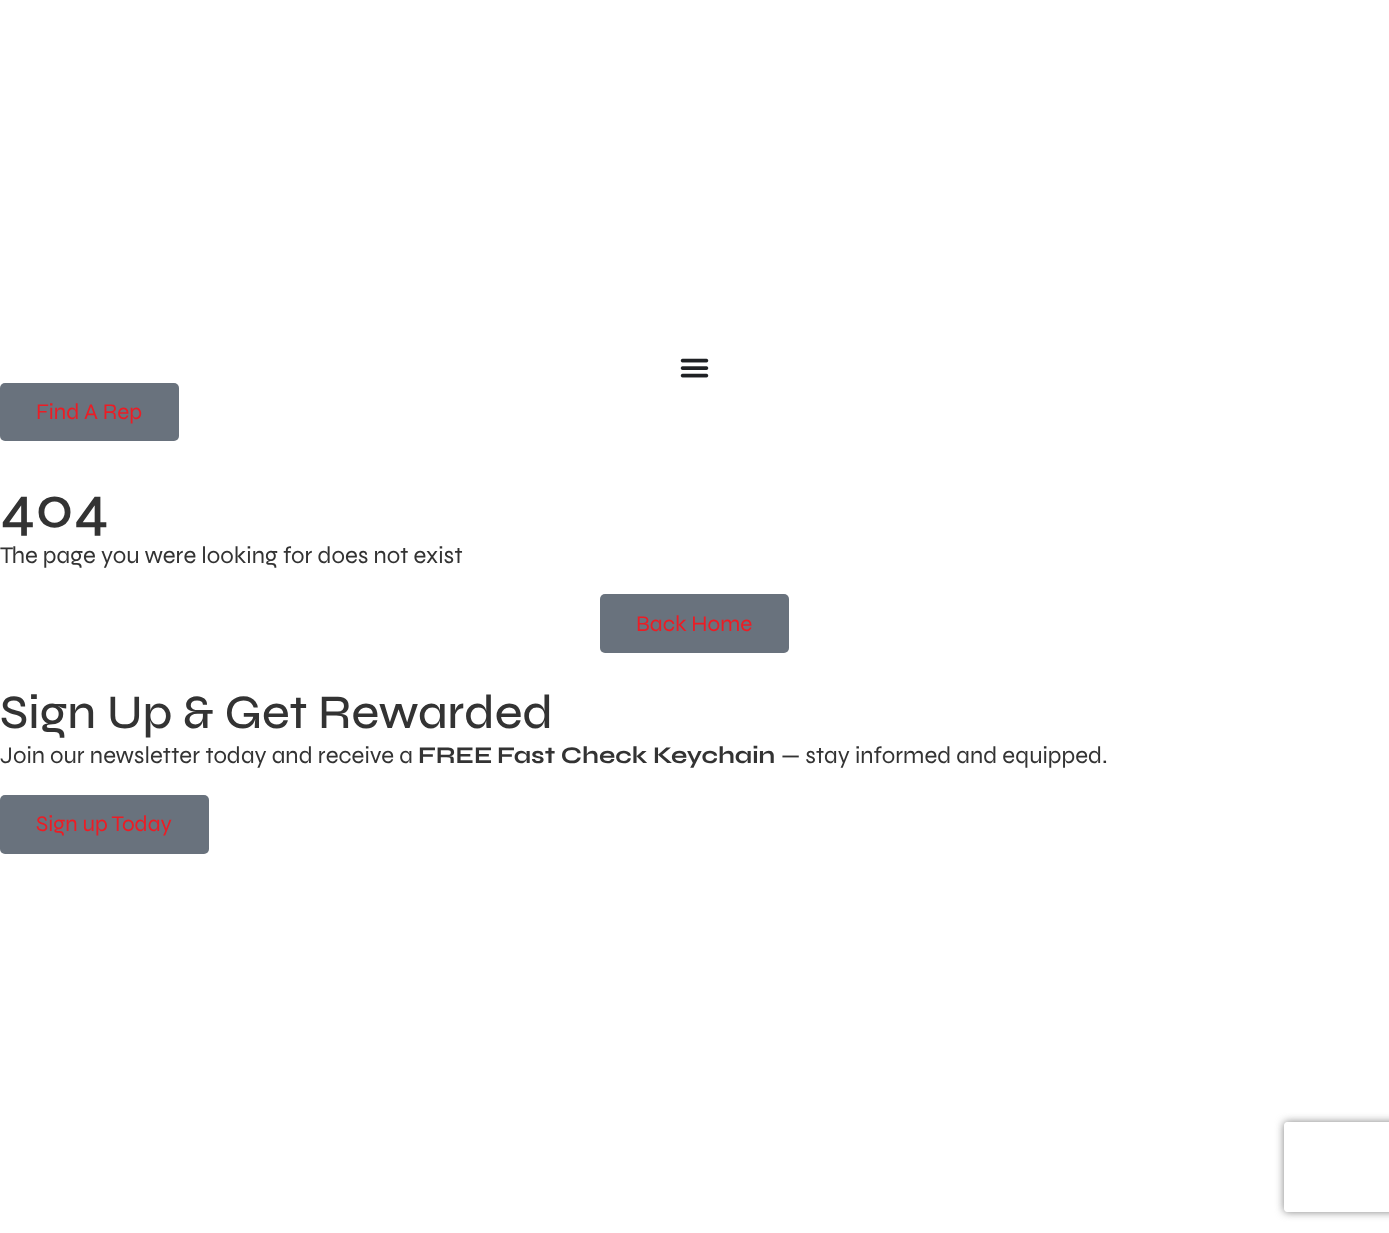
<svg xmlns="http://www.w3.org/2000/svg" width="1389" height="1233">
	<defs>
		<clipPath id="clip1"><path d="M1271 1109H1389V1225H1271ZM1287 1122H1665C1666.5 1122 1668 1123.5 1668 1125V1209C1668 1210.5 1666.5 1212 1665 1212H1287C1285.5 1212 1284 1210.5 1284 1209V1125C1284 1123.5 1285.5 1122 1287 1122Z" clip-rule="evenodd" /></clipPath>
	</defs>
	<rect width="100%" height="100%" fill="#FFFFFF" />
	<image x="680" y="358" width="29" height="20" href="assets/img1.png" />
	<rect x="0" y="383" width="179" height="58" rx="5" fill="#69727D" />
	<text x="36" y="419" font-family="Syne" font-size="22.5" fill="#ED1C24">Find A Rep</text>
	<text x="0" y="527" font-family="Syne" font-size="60" font-weight="500" fill="#333333">404</text>
	<text x="0" y="563" font-family="Syne" font-size="24" fill="#333333">The page you were looking for does not exist</text>
	<rect x="600" y="594" width="189" height="59" rx="5" fill="#69727D" />
	<text x="636" y="631" font-family="Syne" font-size="22.5" fill="#ED1C24">Back Home</text>
	<text x="0" y="728" font-family="Syne" font-size="48" font-weight="500" fill="#333333">Sign Up &amp; Get Rewarded</text>
	<text x="0" y="763" font-family="Syne" font-size="24" fill="#333333">Join our newsletter today and receive a</text>
	<g font-family="Syne" font-size="24" font-weight="700" fill="#333333">
		<text x="418" y="763">FREE</text>
		<text x="497" y="763">Fast Check Keychain</text>
	</g>
	<text x="781" y="763" font-family="Syne" font-size="24" fill="#333333">— stay informed and equipped.</text>
	<rect x="0" y="795" width="209" height="59" rx="5" fill="#69727D" />
	<text x="36" y="831" font-family="Syne" font-size="22.5" fill="#ED1C24">Sign up Today</text>
	<g clip-path="url(#clip1)">
		<rect x="1284" y="1122" width="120" height="90" rx="3" fill="#808080" filter="blur(4px)" />
	</g>
</svg>
